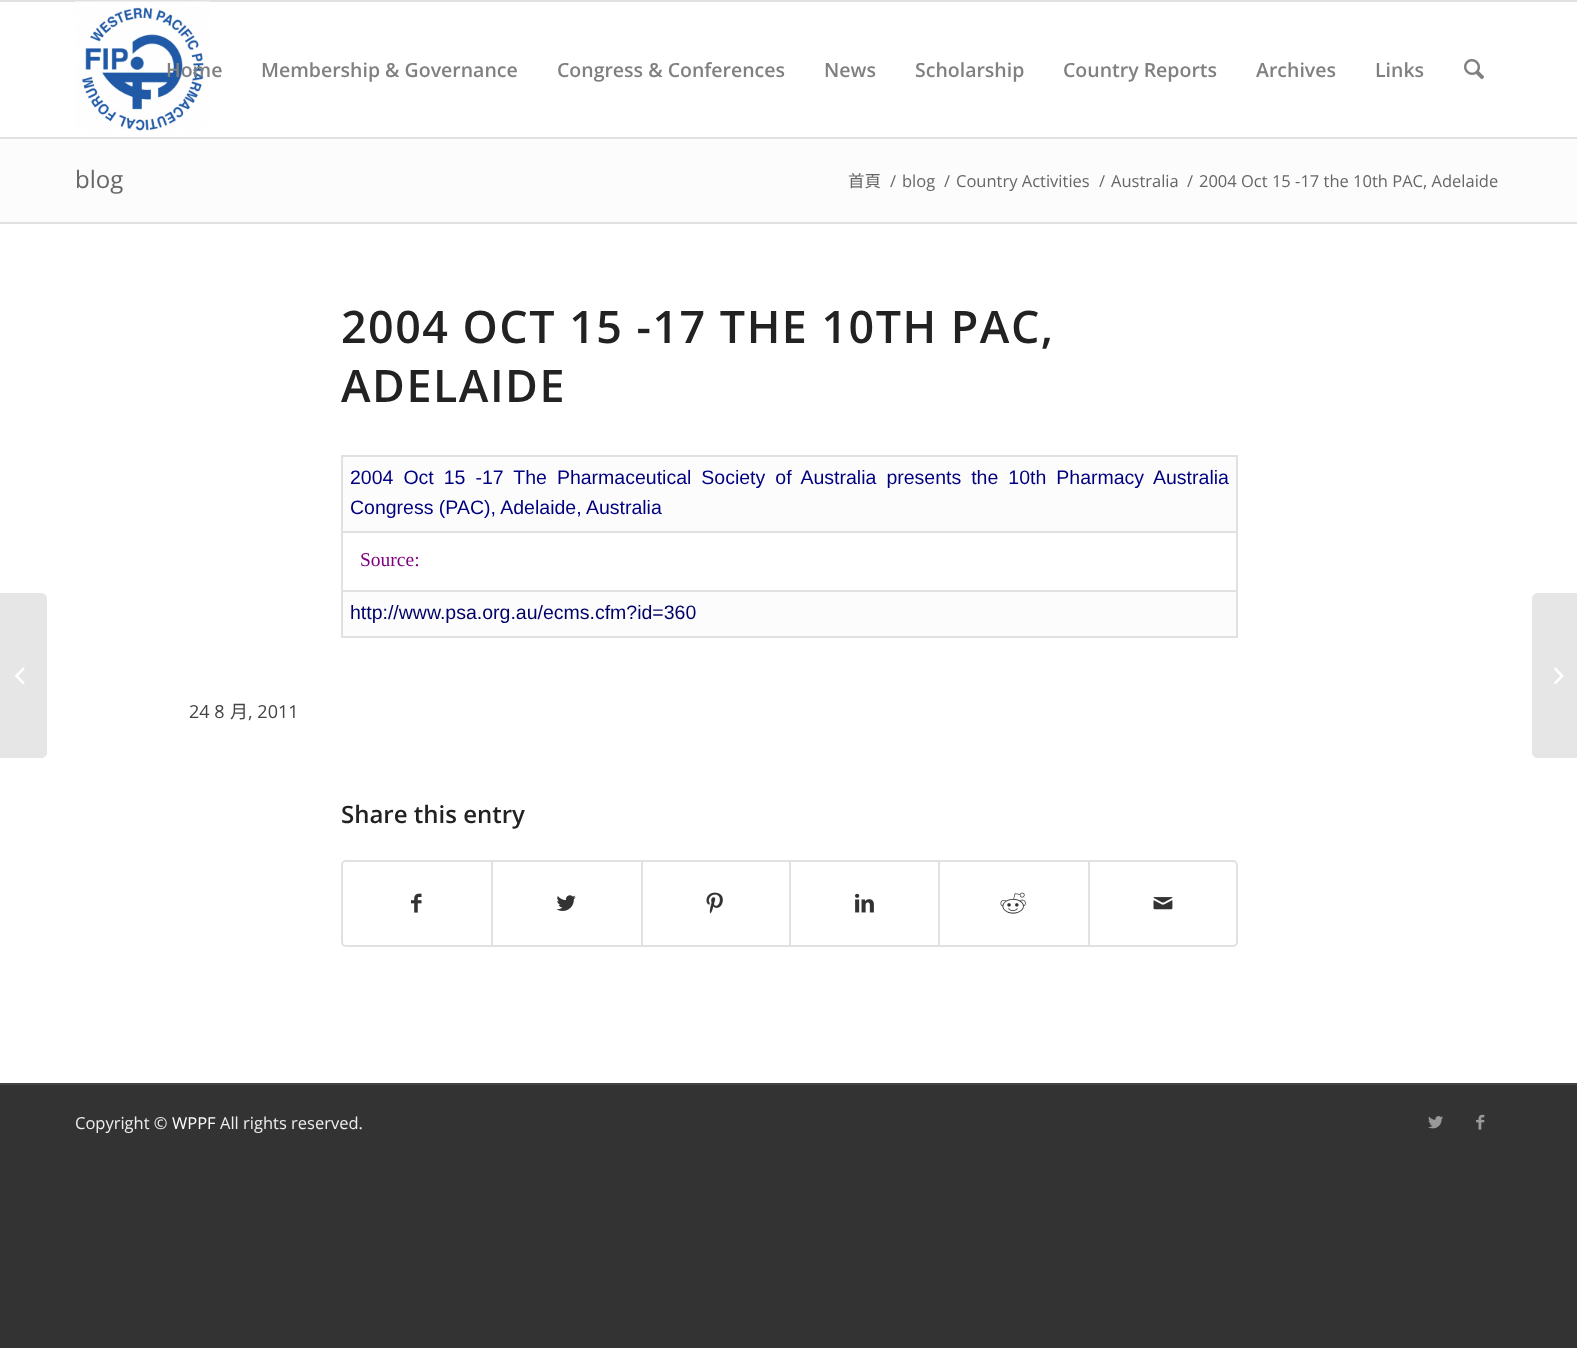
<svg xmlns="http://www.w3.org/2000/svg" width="1577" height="1348">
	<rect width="100%" height="100%" fill="#333333" />
	<rect x="0" y="224" width="1577" height="859" fill="#FFFFFF" />
	<rect x="0" y="2" width="1577" height="133" fill="#FFFFFF" />
	<rect x="0" y="0" width="1577" height="2" fill="#E1E1E1" />
	<rect x="0" y="137" width="1577" height="2" fill="#E1E1E1" />
	<image x="75" y="1" width="135" height="130" href="assets/img1.png" />
	<g font-family="Open Sans" font-size="19.5" font-weight="600" fill="#808080">
		<text x="166" y="77">Home</text>
		<text x="261" y="77">Membership &amp; Governance</text>
		<text x="557" y="77">Congress &amp; Conferences</text>
		<text x="824" y="77">News</text>
		<text x="915" y="77">Scholarship</text>
		<text x="1063" y="77">Country Reports</text>
		<text x="1256" y="77">Archives</text>
		<text x="1375" y="77">Links</text>
	</g>
	<image x="1464" y="59" width="20" height="21" href="assets/img2.png" />
	<path d="M0 593H41C44.5 593 47 595.5 47 599V752C47 755.5 44.5 758 41 758H0Z" fill="#E6E6E6" />
	<image x="15" y="667" width="10" height="17" href="assets/img3.png" />
	<rect x="0" y="139" width="1577" height="83" fill="#FCFCFC" />
	<rect x="0" y="135" width="1577" height="2" fill="#FEFEFE" />
	<text x="75" y="188" font-family="Open Sans" font-size="24" fill="#666666">blog</text>
	<text x="848" y="187" font-family="Noto Sans CJK TC" font-size="16.5" fill="#666666">首頁</text>
	<g font-family="Open Sans" font-size="16.5" fill="#666666">
		<text x="890" y="187">/</text>
		<text x="902" y="187">blog</text>
		<text x="944" y="187">/</text>
		<text x="956" y="187">Country Activities</text>
		<text x="1099" y="187">/</text>
		<text x="1111" y="187">Australia</text>
		<text x="1187" y="187">/</text>
		<text x="1199" y="187">2004 Oct 15 -17 the 10th PAC, Adelaide</text>
	</g>
	<rect x="0" y="222" width="1577" height="2" fill="#E1E1E1" />
	<g font-family="Open Sans" font-size="44.8" font-weight="600" letter-spacing="1.5" fill="#222222">
		<text x="341" y="343">2004 OCT 15 -17 THE 10TH PAC,</text>
		<text x="341" y="402">ADELAIDE</text>
	</g>
	<rect x="343" y="457" width="893" height="179" fill="#FCFCFC" />
	<rect x="341" y="455" width="897" height="2" fill="#E1E1E1" />
	<rect x="1236" y="531" width="2" height="107" fill="#E1E1E1" />
	<rect x="1236" y="455" width="2" height="78" fill="#E1E1E1" />
	<rect x="341" y="636" width="897" height="2" fill="#E1E1E1" />
	<rect x="341" y="590" width="2" height="48" fill="#E1E1E1" />
	<rect x="341" y="590" width="897" height="2" fill="#E1E1E1" />
	<rect x="341" y="531" width="2" height="60" fill="#E1E1E1" />
	<rect x="341" y="531" width="897" height="2" fill="#E1E1E1" />
	<rect x="341" y="455" width="2" height="78" fill="#E1E1E1" />
	<g font-family="Liberation Sans" font-size="19.5" fill="#000080">
		<text x="350" y="484" word-spacing="4.6">2004 Oct 15 -17 The Pharmaceutical Society of Australia presents the 10th Pharmacy Australia</text>
		<text x="350" y="514">Congress (PAC), Adelaide, Australia</text>
	</g>
	<rect x="343" y="533" width="893" height="57" fill="#FFFFFF" />
	<text x="360" y="566" font-family="Liberation Serif" font-size="19.5" fill="#800080">Source:</text>
	<text x="350" y="619" font-family="Liberation Sans" font-size="19.5" fill="#000069">http://www.psa.org.au/ecms.cfm?id=360</text>
	<text x="189" y="718" font-family="Open Sans" font-size="18" fill="#444444">24 8</text>
	<text x="230" y="718" font-family="Noto Sans CJK TC" font-size="18" fill="#444444">月</text>
	<text x="248" y="718" font-family="Open Sans" font-size="18" fill="#444444">, 2011</text>
	<text x="341" y="823" font-family="Open Sans" font-size="24" font-weight="600" fill="#222222">Share this entry</text>
	<rect x="342" y="861" width="895" height="85" rx="4" fill="none" stroke="#E1E1E1" stroke-width="2" />
	<image x="411" y="893" width="11" height="20" href="assets/img4.png" />
	<rect x="491" y="861" width="2" height="84" fill="#E1E1E1" />
	<image x="556" y="895" width="20" height="16" href="assets/img5.png" />
	<rect x="641" y="861" width="2" height="84" fill="#E1E1E1" />
	<image x="706" y="892" width="17" height="22" href="assets/img6.png" />
	<rect x="789" y="861" width="2" height="84" fill="#E1E1E1" />
	<image x="855" y="893" width="19" height="20" href="assets/img7.png" />
	<rect x="938" y="861" width="2" height="84" fill="#E1E1E1" />
	<image x="1000" y="892" width="26" height="22" href="assets/img8.png" />
	<rect x="1088" y="861" width="2" height="84" fill="#E1E1E1" />
	<image x="1153" y="897" width="20" height="13" href="assets/img9.png" />
	<rect x="0" y="1083" width="1577" height="2" fill="#444444" />
	<text x="75" y="1129" font-family="Open Sans" font-size="16.5" fill="#EEEEEE">Copyright ©</text>
	<text x="172" y="1129" font-family="Open Sans" font-size="16.5" fill="#FFFFFF">WPPF</text>
	<text x="220" y="1129" font-family="Open Sans" font-size="16.5" fill="#EEEEEE">All rights reserved.</text>
	<image x="1428" y="1116" width="15" height="13" href="assets/img10.png" />
	<image x="1476" y="1114" width="9" height="16" href="assets/img11.png" />
	<path d="M1538 593H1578V758H1538C1534.5 758 1532 755.5 1532 752V599C1532 595.5 1534.5 593 1538 593Z" fill="#E6E6E6" />
	<image x="1554" y="667" width="10" height="17" href="assets/img12.png" />
</svg>
